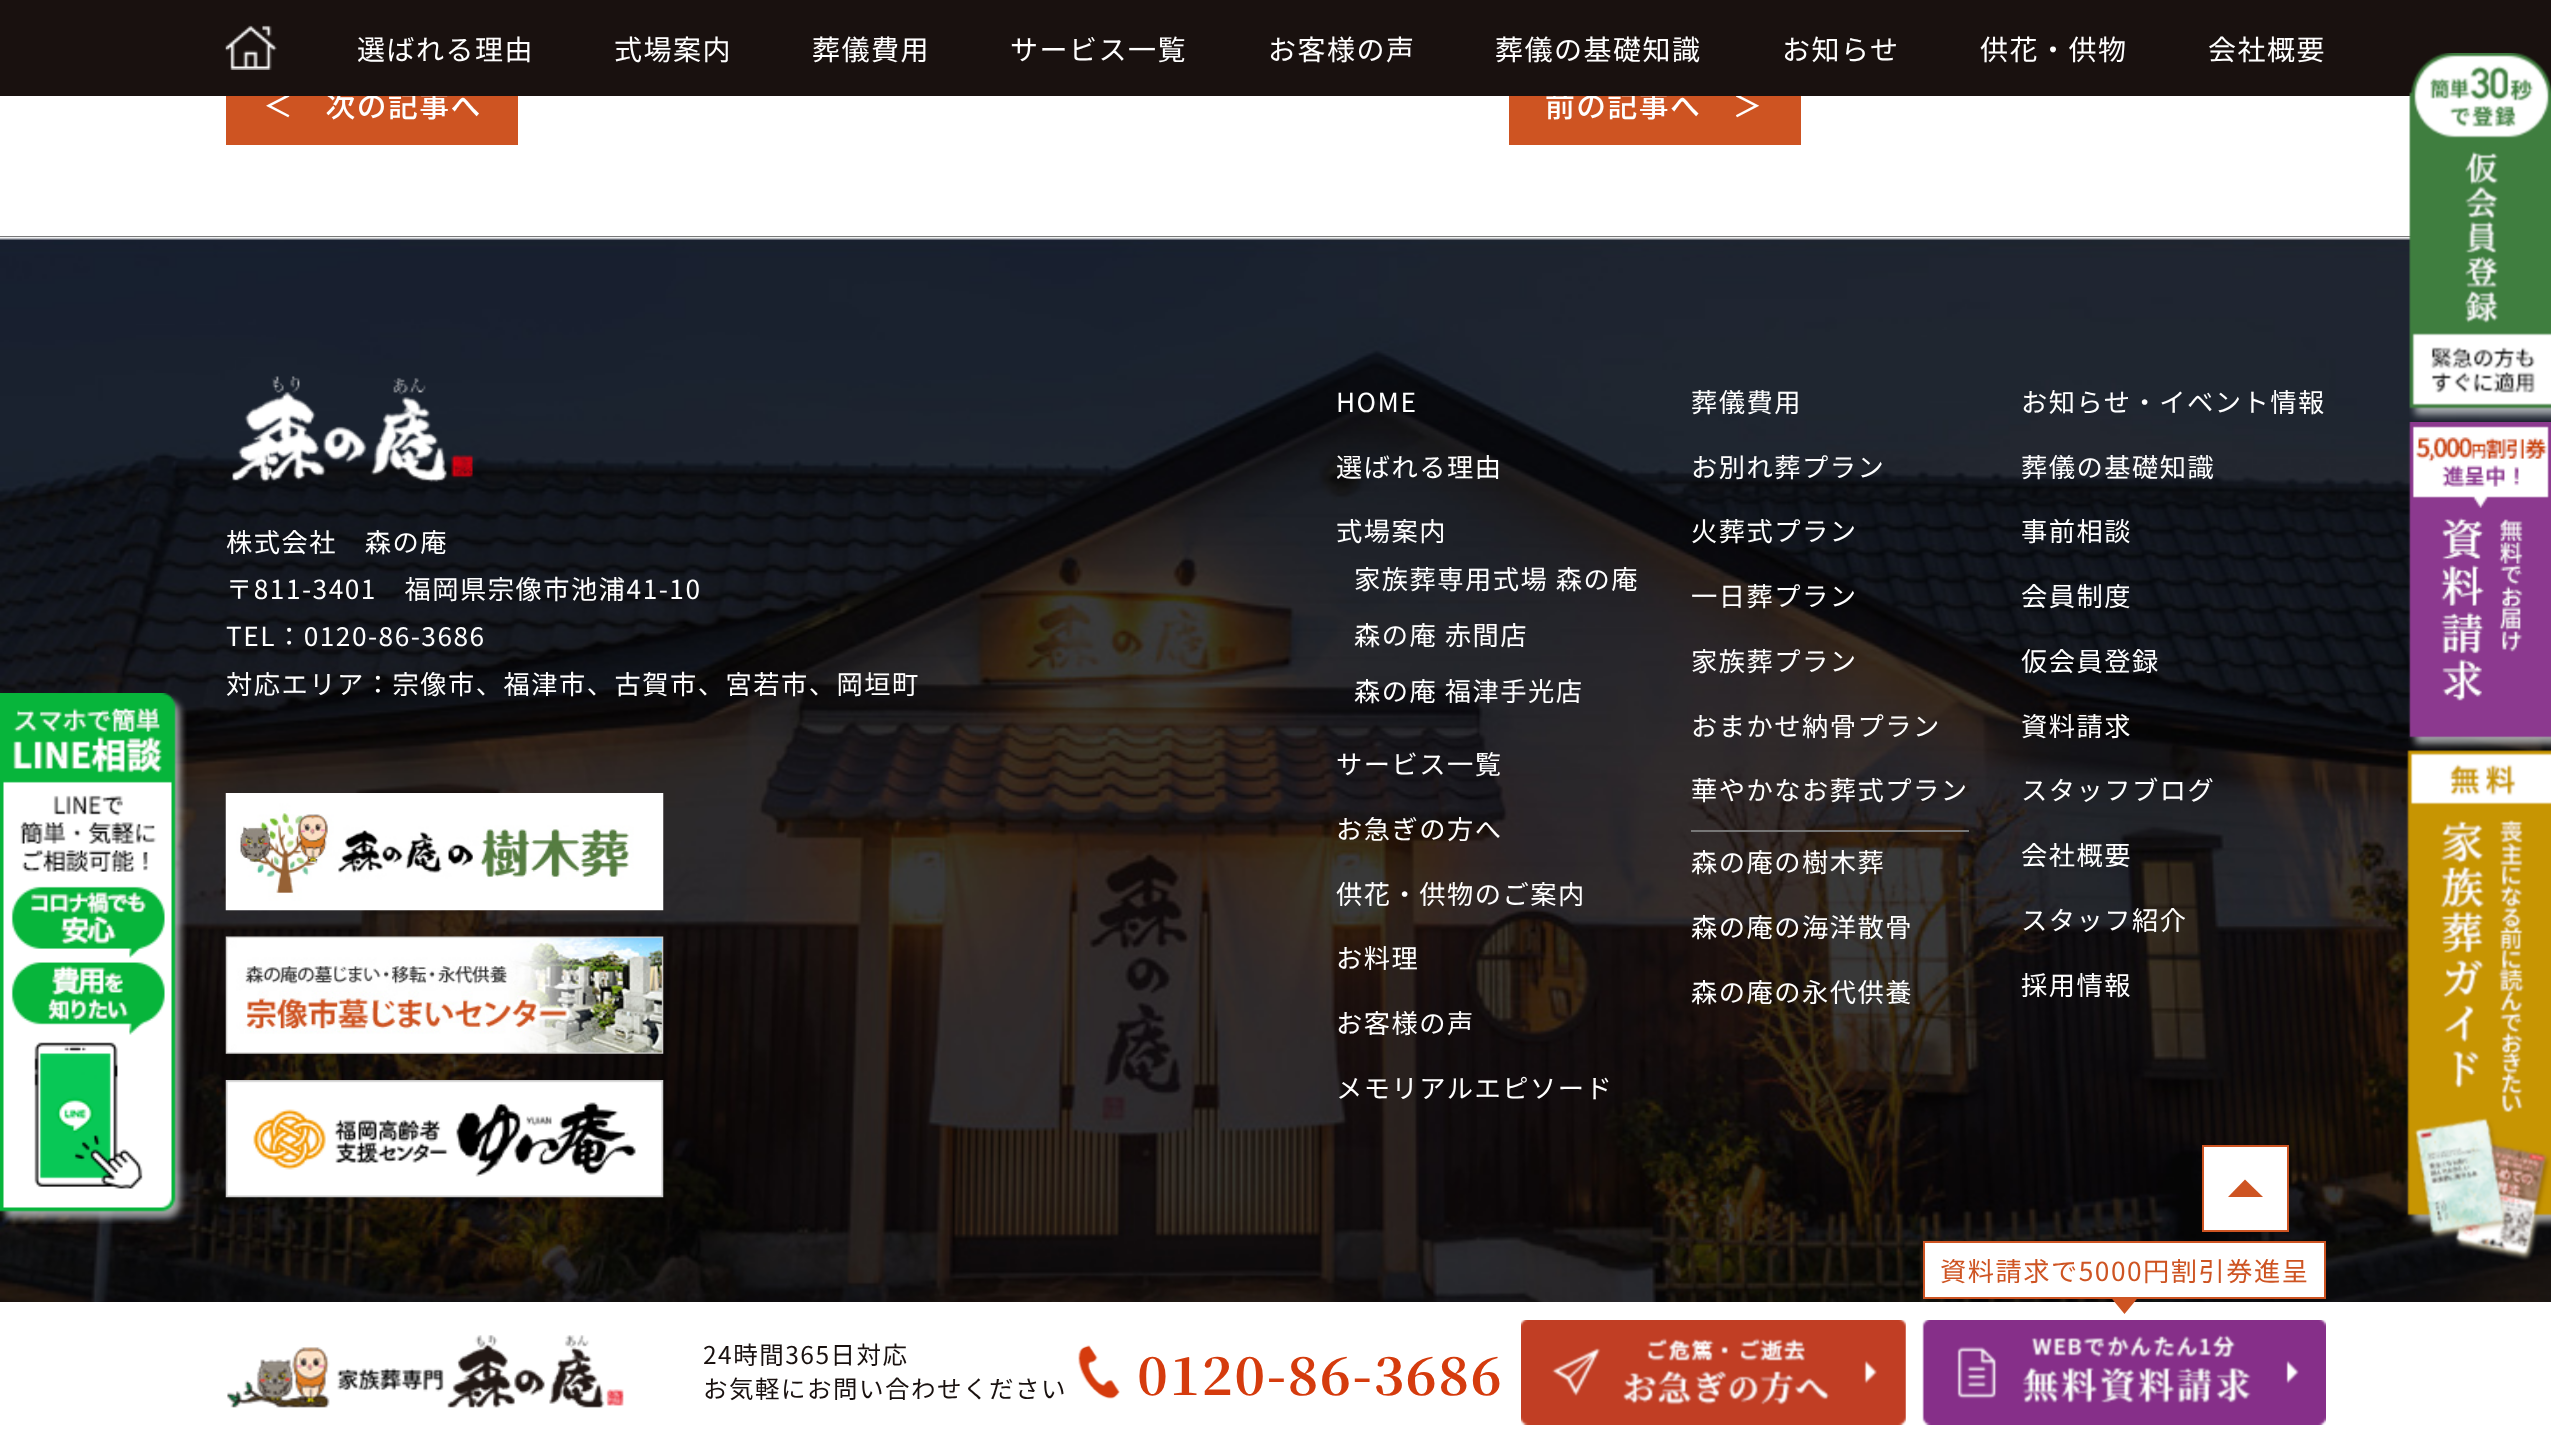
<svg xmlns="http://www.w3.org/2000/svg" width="2551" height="1441">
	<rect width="100%" height="100%" fill="#FFFFFF" />
	<rect x="226" y="96" width="292" height="49" fill="#CE5422" />
	<text x="263" y="117" font-family="Noto Sans JP" font-size="29.75" font-weight="500" letter-spacing="1.5" fill="#FFFFFF">＜　次の記事へ</text>
	<rect x="1509" y="96" width="292" height="49" fill="#CE5422" />
	<text x="1545" y="117" font-family="Noto Sans JP" font-size="29.75" font-weight="500" letter-spacing="1.5" fill="#FFFFFF">前の記事へ　＞</text>
	<rect x="0" y="0" width="2551" height="96" fill="#19110F" />
	<image x="225" y="25" width="52" height="45" href="assets/img1.png" />
	<g font-family="Noto Sans JP" font-size="28" letter-spacing="1.5" fill="#FFFFFF">
		<text x="357" y="60">選ばれる理由</text>
		<text x="614" y="60">式場案内</text>
		<text x="812" y="60">葬儀費用</text>
		<text x="1010" y="60">サービス一覧</text>
		<text x="1268" y="60">お客様の声</text>
		<text x="1495" y="60">葬儀の基礎知識</text>
		<text x="1782" y="60">お知らせ</text>
		<text x="1980" y="60">供花・供物</text>
		<text x="2208" y="60">会社概要</text>
	</g>
	<rect x="0" y="236" width="2411" height="1" fill="#000000" />
	<image x="0" y="236" width="2551" height="1066" href="assets/img6.png" />
	<image x="0" y="693" width="187" height="531" href="assets/img2.png" />
	<image x="2409" y="53" width="142" height="368" href="assets/img3.png" />
	<image x="2408" y="422" width="143" height="329" href="assets/img4.png" />
	<image x="2406" y="750" width="145" height="511" href="assets/img5.png" />
	<image x="232" y="376" width="241" height="106" href="assets/img7.png" />
	<g font-family="Noto Sans JP" font-size="26.25" letter-spacing="1.5" fill="#FFFFFF">
		<text x="226" y="552">株式会社　森の庵</text>
		<text x="226" y="599">〒811-3401　福岡県宗像市池浦41-10</text>
		<text x="226" y="646">TEL：0120-86-3686</text>
		<text x="226" y="694">対応エリア：宗像市、福津市、古賀市、宮若市、岡垣町</text>
	</g>
	<image x="225" y="793" width="439" height="118" href="assets/img8.png" />
	<image x="225" y="936" width="439" height="118" href="assets/img9.png" />
	<image x="225" y="1080" width="439" height="118" href="assets/img10.png" />
	<g font-family="Noto Sans JP" font-size="26.25" letter-spacing="1.5" fill="#FFFFFF">
		<text x="1336" y="412">HOME</text>
		<text x="1336" y="477">選ばれる理由</text>
		<text x="1336" y="541">式場案内</text>
		<text x="1354" y="589">家族葬専用式場 森の庵</text>
		<text x="1354" y="645">森の庵 赤間店</text>
		<text x="1354" y="701">森の庵 福津手光店</text>
		<text x="1336" y="774">サービス一覧</text>
		<text x="1336" y="839">お急ぎの方へ</text>
		<text x="1336" y="904">供花・供物のご案内</text>
		<text x="1336" y="968">お料理</text>
		<text x="1336" y="1033">お客様の声</text>
		<text x="1336" y="1098">メモリアルエピソード</text>
		<text x="1691" y="412">葬儀費用</text>
		<text x="1691" y="477">お別れ葬プラン</text>
		<text x="1691" y="541">火葬式プラン</text>
		<text x="1691" y="606">一日葬プラン</text>
		<text x="1691" y="671">家族葬プラン</text>
		<text x="1691" y="736">おまかせ納骨プラン</text>
		<text x="1691" y="800">華やかなお葬式プラン</text>
	</g>
	<rect x="1691" y="830" width="278" height="2" fill="#777777" />
	<g font-family="Noto Sans JP" font-size="26.25" letter-spacing="1.5" fill="#FFFFFF">
		<text x="1691" y="872">森の庵の樹木葬</text>
		<text x="1691" y="937">森の庵の海洋散骨</text>
		<text x="1691" y="1002">森の庵の永代供養</text>
		<text x="2021" y="412">お知らせ・イベント情報</text>
		<text x="2021" y="477">葬儀の基礎知識</text>
		<text x="2021" y="541">事前相談</text>
		<text x="2021" y="606">会員制度</text>
		<text x="2021" y="671">仮会員登録</text>
		<text x="2021" y="736">資料請求</text>
		<text x="2021" y="800">スタッフブログ</text>
		<text x="2021" y="865">会社概要</text>
		<text x="2021" y="930">スタッフ紹介</text>
		<text x="2021" y="995">採用情報</text>
	</g>
	<rect x="2203" y="1146" width="85" height="85" fill="#FFFFFF" stroke="#CE5422" stroke-width="2" />
	<path d="M2263 1197H2228L2245 1179.5Z" fill="#CE5422" />
	<image x="227" y="1335" width="397" height="73" href="assets/img11.png" />
	<rect x="1924" y="1242" width="401" height="56" fill="#FFFFFF" stroke="#CE5422" stroke-width="2" />
	<text x="1940" y="1281" font-family="Noto Sans JP" font-size="26.25" letter-spacing="1.5" fill="#CE5422">資料請求で5000円割引券進呈</text>
	<path d="M2110.5 1297H2138.5L2124.5 1314Z" fill="#CE5422" />
	<image x="1922" y="1320" width="404" height="105" href="assets/img12.png" />
	<g font-family="Noto Sans JP" font-size="24.5" letter-spacing="1.5" fill="#19110F">
		<text x="703" y="1364">24時間365日対応</text>
		<text x="703" y="1398">お気軽にお問い合わせください</text>
	</g>
	<image x="1078" y="1345" width="42" height="54" href="assets/img13.png" />
	<text x="1137" y="1395" font-family="Noto Serif JP" font-size="52.5" font-weight="700" letter-spacing="1.5" fill="#D53B0D">0120-86-3686</text>
	<image x="1521" y="1320" width="385" height="105" href="assets/img14.png" />
</svg>
